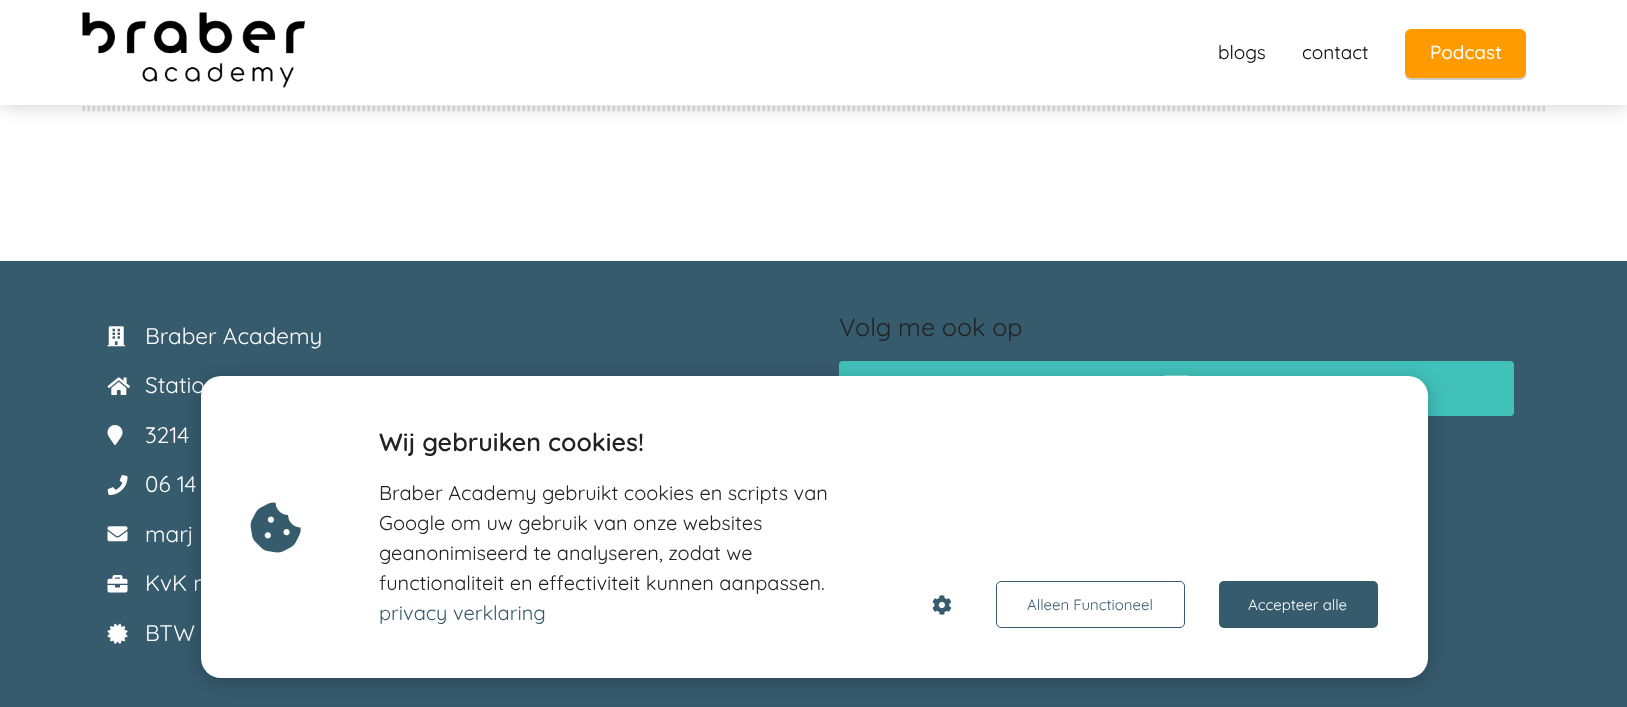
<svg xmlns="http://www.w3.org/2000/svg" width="1627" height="707">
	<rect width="100%" height="100%" fill="#365B6D" />
	<rect x="0" y="105" width="1627" height="156" fill="#FFFFFF" />
	<path d="M82.5 107.5H1545" fill="none" stroke="#DCDCDC" stroke-width="2.5" stroke-dasharray="2.5 2.5" />
	<path d="M82.5 110H1545" fill="none" stroke="#DCDCDC" stroke-width="2.5" stroke-dasharray="2.5 2.5" />
	<rect x="0" y="0" width="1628" height="105" fill="#000000" fill-opacity="0.2" filter="blur(9.5px)" />
	<rect x="0" y="0" width="1627" height="105" fill="#FFFFFF" />
	<image x="82" y="12" width="223" height="76" href="assets/img1.png" />
	<g font-family="Quicksand" font-size="19" fill="#000000">
		<text x="1218" y="59">blogs</text>
		<text x="1302" y="59">contact</text>
	</g>
	<rect x="1405" y="31" width="121" height="49" rx="6" fill="#000000" fill-opacity="0.2" filter="blur(0.5px)" />
	<rect x="1405" y="29" width="121" height="49" rx="6" fill="#FF9B00" />
	<text x="1430" y="59" font-family="Quicksand" font-size="19" font-weight="500" fill="#FFFFFF">Podcast</text>
	<image x="107" y="326" width="18" height="21" href="assets/img2.png" />
	<text x="145" y="344" font-family="Quicksand" font-size="22.5" fill="#FFFFFF">Braber Academy</text>
	<image x="107" y="377" width="23" height="18" href="assets/img3.png" />
	<text x="145" y="393" font-family="Quicksand" font-size="22.5" fill="#FFFFFF">Statio</text>
	<image x="107" y="425" width="16" height="20" href="assets/img4.png" />
	<text x="145" y="443" font-family="Quicksand" font-size="22.5" fill="#FFFFFF">3214</text>
	<image x="107" y="475" width="21" height="20" href="assets/img5.png" />
	<text x="145" y="492" font-family="Quicksand" font-size="22.5" fill="#FFFFFF">06 14</text>
	<image x="107" y="526" width="21" height="16" href="assets/img6.png" />
	<text x="145" y="542" font-family="Quicksand" font-size="22.5" fill="#FFFFFF">marj</text>
	<image x="107" y="575" width="21" height="18" href="assets/img7.png" />
	<text x="145" y="591" font-family="Quicksand" font-size="22.5" fill="#FFFFFF">KvK n</text>
	<image x="107" y="623" width="21" height="21" href="assets/img8.png" />
	<text x="145" y="641" font-family="Quicksand" font-size="22.5" fill="#FFFFFF">BTW</text>
	<text x="839" y="336" font-family="Quicksand" font-size="25" fill="#222222">Volg me ook op</text>
	<rect x="839" y="361" width="675" height="55" rx="4" fill="#41C1BA" />
	<image x="1164" y="375" width="25" height="1" href="assets/img9.png" />
	<rect x="201" y="380" width="1227" height="301" rx="20" fill="#000000" fill-opacity="0.24" filter="blur(9.5px)" />
	<rect x="201" y="376" width="1227" height="302" rx="20" fill="#FFFFFF" />
	<image x="250" y="502" width="51" height="51" href="assets/img10.png" />
	<text x="379" y="451" font-family="Quicksand" font-size="25" font-weight="600" fill="#222222">Wij gebruiken cookies!</text>
	<g font-family="Quicksand" font-size="20" fill="#222222">
		<text x="379" y="500">Braber Academy gebruikt cookies en scripts van</text>
		<text x="379" y="530">Google om uw gebruik van onze websites</text>
		<text x="379" y="560">geanonimiseerd te analyseren, zodat we</text>
		<text x="379" y="590">functionaliteit en effectiviteit kunnen aanpassen.</text>
	</g>
	<text x="379" y="620" font-family="Quicksand" font-size="20" fill="#365B6D">privacy verklaring</text>
	<image x="932" y="595" width="20" height="20" href="assets/img11.png" />
	<rect x="996.5" y="581.5" width="188" height="46" rx="4.5" fill="none" stroke="#365B6D" />
	<text x="1027" y="610" font-family="Quicksand" font-size="15" fill="#365B6D">Alleen Functioneel</text>
	<rect x="1219" y="581" width="159" height="47" rx="5" fill="#365B6D" />
	<text x="1248" y="610" font-family="Quicksand" font-size="15" fill="#FFFFFF">Accepteer alle</text>
</svg>
